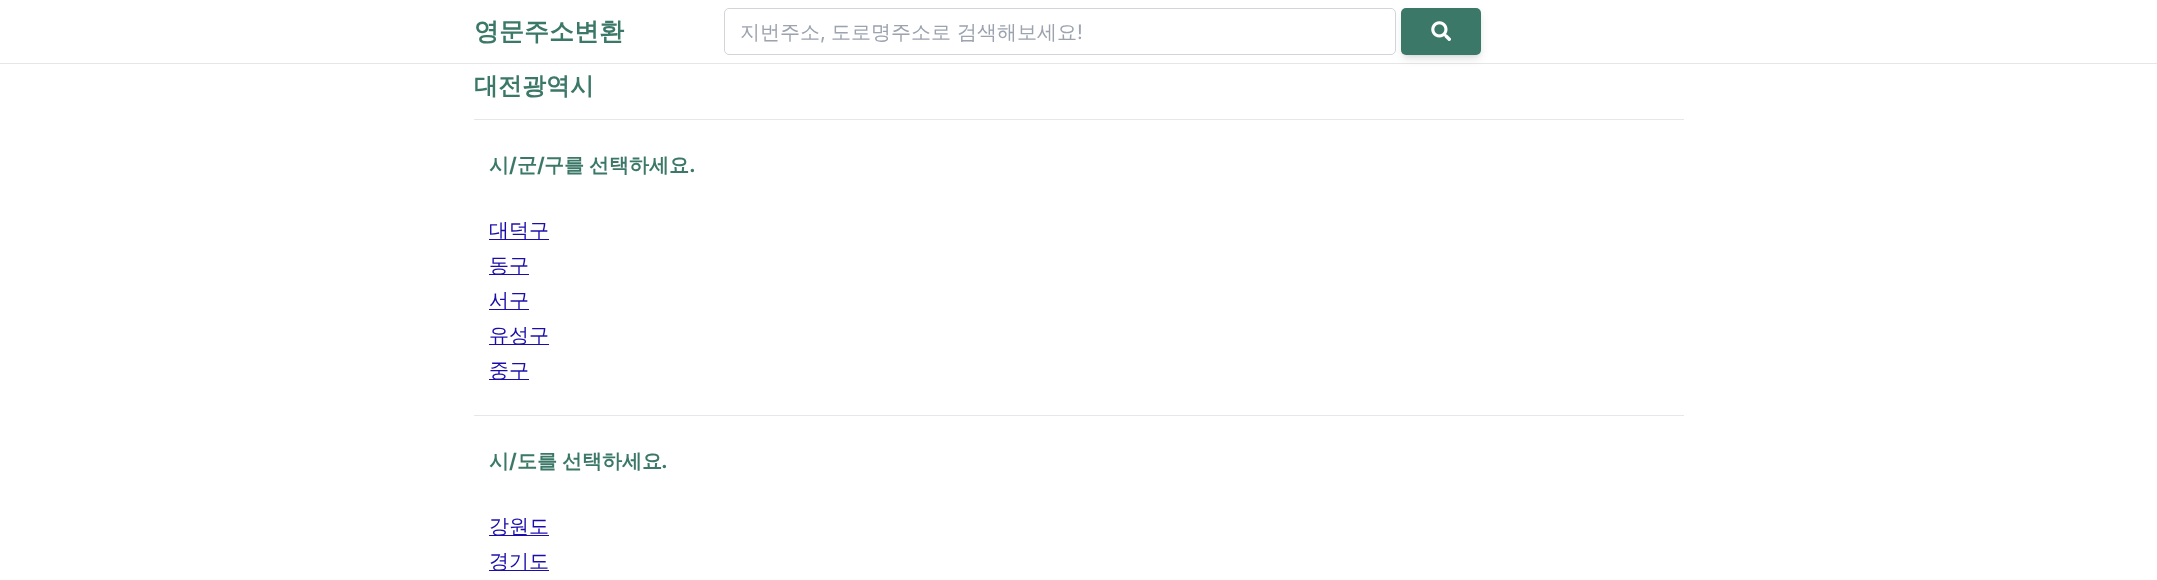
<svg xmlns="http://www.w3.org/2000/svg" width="2157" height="580">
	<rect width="100%" height="100%" fill="#FFFFFF" />
	<path d="M0 62V64H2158V1V62Z" fill="#E6E6E6" />
	<rect x="0" y="62" width="2157" height="1" fill="#FFFFFF" />
	<text x="474" y="40" font-family="WenQuanYi Zen Hei" font-size="25" font-weight="700" fill="#3B7867">영문주소변환</text>
	<rect x="1404" y="13" width="75" height="42" rx="2.5" fill="#000000" fill-opacity="0.1" filter="blur(2.5px)" />
	<rect x="1403" y="14" width="77" height="45" rx="4" fill="#000000" fill-opacity="0.1" filter="blur(4px)" />
	<rect x="724.5" y="8.5" width="671" height="46" rx="4.5" fill="none" stroke="#D1D5DB" />
	<text x="740" y="39" font-family="WenQuanYi Zen Hei" font-size="20" font-weight="500" fill="#9CA3AF">지번주소</text>
	<text x="820" y="39" font-family="Inter" font-size="20" fill="#9CA3AF">,</text>
	<text x="831" y="39" font-family="WenQuanYi Zen Hei" font-size="20" font-weight="500" fill="#9CA3AF">도로명주소로 검색해보세요</text>
	<text x="1077" y="39" font-family="Inter" font-size="20" fill="#9CA3AF">!</text>
	<rect x="1401" y="8" width="80" height="47" rx="5" fill="#3B7867" />
	<image x="1431" y="21" width="20" height="20" href="assets/img1.png" />
	<text x="474" y="94" font-family="WenQuanYi Zen Hei" font-size="24" font-weight="700" fill="#3B7867">대전광역시</text>
	<rect x="474" y="119" width="1210" height="1" fill="#E5E7EB" />
	<text x="489" y="172" font-family="WenQuanYi Zen Hei" font-size="20" font-weight="700" fill="#3B7867">시</text>
	<text x="509" y="172" font-family="Inter" font-size="20" font-weight="700" fill="#3B7867">/</text>
	<text x="517" y="172" font-family="WenQuanYi Zen Hei" font-size="20" font-weight="700" fill="#3B7867">군</text>
	<text x="537" y="172" font-family="Inter" font-size="20" font-weight="700" fill="#3B7867">/</text>
	<text x="544" y="172" word-spacing="-1" font-family="WenQuanYi Zen Hei" font-size="20" font-weight="700" fill="#3B7867">구를 선택하세요</text>
	<text x="689" y="172" font-family="Inter" font-size="20" font-weight="700" fill="#3B7867">.</text>
	<rect x="489" y="239" width="60" height="1" fill="#1A0DAB" />
	<text x="489" y="237" font-family="WenQuanYi Zen Hei" font-size="20" font-weight="500" fill="#1A0DAB">대덕구</text>
	<rect x="489" y="274" width="40" height="1" fill="#1A0DAB" />
	<text x="489" y="272" font-family="WenQuanYi Zen Hei" font-size="20" font-weight="500" fill="#1A0DAB">동구</text>
	<rect x="489" y="309" width="40" height="1" fill="#1A0DAB" />
	<text x="489" y="307" font-family="WenQuanYi Zen Hei" font-size="20" font-weight="500" fill="#1A0DAB">서구</text>
	<rect x="489" y="344" width="60" height="1" fill="#1A0DAB" />
	<text x="489" y="342" font-family="WenQuanYi Zen Hei" font-size="20" font-weight="500" fill="#1A0DAB">유성구</text>
	<rect x="489" y="379" width="40" height="1" fill="#1A0DAB" />
	<text x="489" y="377" font-family="WenQuanYi Zen Hei" font-size="20" font-weight="500" fill="#1A0DAB">중구</text>
	<rect x="474" y="415" width="1210" height="1" fill="#E5E7EB" />
	<text x="489" y="468" font-family="WenQuanYi Zen Hei" font-size="20" font-weight="700" fill="#3B7867">시</text>
	<text x="509" y="468" font-family="Inter" font-size="20" font-weight="700" fill="#3B7867">/</text>
	<text x="517" y="468" word-spacing="-1" font-family="WenQuanYi Zen Hei" font-size="20" font-weight="700" fill="#3B7867">도를 선택하세요</text>
	<text x="661" y="468" font-family="Inter" font-size="20" font-weight="700" fill="#3B7867">.</text>
	<rect x="489" y="535" width="60" height="1" fill="#1A0DAB" />
	<text x="489" y="533" font-family="WenQuanYi Zen Hei" font-size="20" font-weight="500" fill="#1A0DAB">강원도</text>
	<rect x="489" y="570" width="60" height="1" fill="#1A0DAB" />
	<text x="489" y="568" font-family="WenQuanYi Zen Hei" font-size="20" font-weight="500" fill="#1A0DAB">경기도</text>
</svg>
